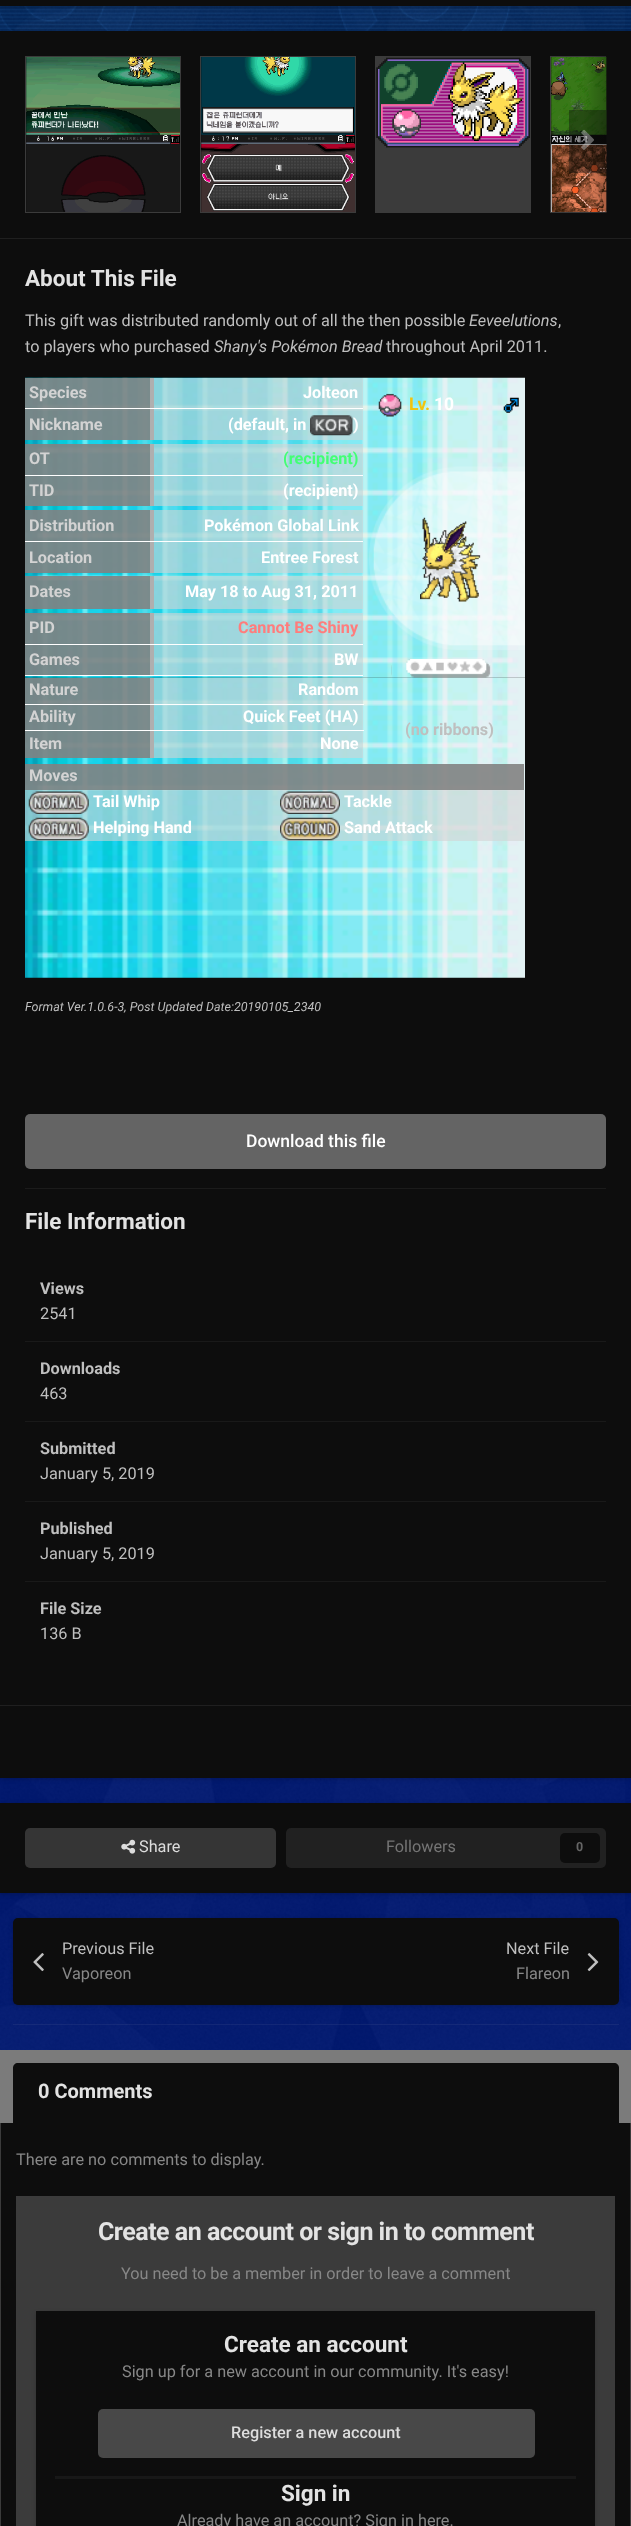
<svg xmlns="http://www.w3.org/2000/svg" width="631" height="2526">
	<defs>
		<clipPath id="clip1"><rect x="25" y="56" width="581" height="157" /></clipPath>
		<linearGradient id="g1" gradientUnits="userSpaceOnUse" x1="581" y1="134" x2="606" y2="134"><stop offset="0" stop-color="#000000" stop-opacity="0" /><stop offset="0.24" stop-color="#000000" stop-opacity="0.04" /><stop offset="1" stop-color="#000000" stop-opacity="0.25" /></linearGradient>
	</defs>
	<rect width="100%" height="100%" fill="#001871" />
	<image x="0" y="6" width="631" height="25" href="assets/img1.png" />
	<image x="0" y="6" width="631" height="2044" href="assets/img2.png" />
	<rect x="0" y="-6" width="631" height="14" fill="#000000" fill-opacity="0.2" filter="blur(2px)" />
	<rect x="0" y="0" width="631" height="6" fill="#0D0D0D" />
	<rect x="0" y="33" width="631" height="1746" fill="#000000" fill-opacity="0.2" filter="blur(2px)" />
	<rect x="0" y="31" width="631" height="1747" fill="#0D0D0D" />
	<rect x="0" y="238" width="631" height="1" fill="#1F1F1F" />
	<image x="26" y="57" width="154" height="155" href="assets/img3.png" />
	<rect x="25.5" y="56.5" width="155" height="156" fill="none" stroke="#3B3B3B" />
	<image x="201" y="57" width="154" height="155" href="assets/img4.png" />
	<rect x="200.5" y="56.5" width="155" height="156" fill="none" stroke="#3B3B3B" />
	<rect x="375" y="56" width="156" height="157" fill="#3B3B3B" />
	<image x="376" y="57" width="154" height="91" href="assets/img5.png" />
	<image x="551" y="56" width="56" height="157" href="assets/img6.png" />
	<g clip-path="url(#clip1)">
		<rect x="550.5" y="56.5" width="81" height="156" fill="none" stroke="#3B3B3B" />
	</g>
	<rect x="584" y="56" width="22" height="157" fill="url(#g1)" />
	<rect x="569" y="110" width="37" height="63" fill="#0D0D0D" fill-opacity="0.4" />
	<image x="581" y="129" width="13" height="21" href="assets/img7.png" />
	<text x="25" y="286" font-family="Roboto" font-size="22.5" font-weight="700" fill="#E3E3E3">About This File</text>
	<text x="25" y="326" font-family="Roboto" font-size="16.25" fill="#BFBFBF">This gift was distributed randomly out of all the then possible</text>
	<text x="469" y="326" font-family="Roboto" font-size="16.25" font-style="italic" fill="#BFBFBF">Eeveelutions</text>
	<g font-family="Roboto" font-size="16.25" fill="#BFBFBF">
		<text x="558" y="326">,</text>
		<text x="25" y="352">to players who purchased</text>
	</g>
	<text x="214" y="352" font-family="Roboto" font-size="16.25" font-style="italic" fill="#BFBFBF">Shany's Pokémon Bread</text>
	<text x="386" y="352" font-family="Roboto" font-size="16.25" fill="#BFBFBF">throughout April 2011.</text>
	<image x="25" y="377" width="500" height="301" href="assets/img8.png" />
	<rect x="150" y="378" width="4" height="62" fill="#AFAFAF" />
	<rect x="25" y="408" width="338" height="1" fill="#FFFFFF" />
	<rect x="25" y="378" width="125" height="30" fill="#828282" fill-opacity="0.9" />
	<text x="29" y="398" font-family="Roboto" font-size="16.25" font-weight="700" fill="#D3D3D3">Species</text>
	<rect x="154" y="378" width="209" height="30" fill="#D3D3D3" fill-opacity="0.6" />
	<text x="303" y="398" font-family="Roboto" font-size="16.25" font-weight="700" fill="#FFFFFF">Jolteon</text>
	<rect x="25" y="409" width="125" height="31" fill="#828282" fill-opacity="0.9" />
	<text x="29" y="430" font-family="Roboto" font-size="16.25" font-weight="700" fill="#D3D3D3">Nickname</text>
	<rect x="154" y="409" width="209" height="31" fill="#D3D3D3" fill-opacity="0.6" />
	<text x="228" y="430" font-family="Roboto" font-size="16.25" font-weight="700" fill="#FFFFFF">(default, in</text>
	<image x="310" y="415" width="43" height="21" href="assets/img9.png" />
	<text x="353" y="430" font-family="Roboto" font-size="16.25" font-weight="700" fill="#FFFFFF">)</text>
	<rect x="150" y="444" width="4" height="62" fill="#AFAFAF" />
	<rect x="25" y="475" width="338" height="1" fill="#FFFFFF" />
	<rect x="25" y="444" width="125" height="31" fill="#828282" fill-opacity="0.9" />
	<text x="29" y="464" font-family="Roboto" font-size="16.25" font-weight="700" fill="#D3D3D3">OT</text>
	<rect x="154" y="444" width="209" height="31" fill="#D3D3D3" fill-opacity="0.6" />
	<text x="283" y="464" font-family="Roboto" font-size="16.25" font-weight="700" fill="#42FF74">(recipient)</text>
	<rect x="25" y="476" width="125" height="30" fill="#828282" fill-opacity="0.9" />
	<text x="29" y="496" font-family="Roboto" font-size="16.25" font-weight="700" fill="#D3D3D3">TID</text>
	<rect x="154" y="476" width="209" height="30" fill="#D3D3D3" fill-opacity="0.6" />
	<text x="283" y="496" font-family="Roboto" font-size="16.25" font-weight="700" fill="#FFFFFF">(recipient)</text>
	<rect x="150" y="510" width="4" height="63" fill="#AFAFAF" />
	<rect x="25" y="541" width="338" height="1" fill="#FFFFFF" />
	<rect x="25" y="510" width="125" height="31" fill="#828282" fill-opacity="0.9" />
	<text x="29" y="531" font-family="Roboto" font-size="16.25" font-weight="700" fill="#D3D3D3">Distribution</text>
	<rect x="154" y="510" width="209" height="31" fill="#D3D3D3" fill-opacity="0.6" />
	<text x="204" y="531" font-family="Roboto" font-size="16.25" font-weight="700" fill="#FFFFFF">Pokémon Global Link</text>
	<rect x="25" y="542" width="125" height="31" fill="#828282" fill-opacity="0.9" />
	<text x="29" y="563" font-family="Roboto" font-size="16.25" font-weight="700" fill="#D3D3D3">Location</text>
	<rect x="154" y="542" width="209" height="31" fill="#D3D3D3" fill-opacity="0.6" />
	<text x="261" y="563" font-family="Roboto" font-size="16.25" font-weight="700" fill="#FFFFFF">Entree Forest</text>
	<rect x="25" y="576" width="125" height="33" fill="#828282" fill-opacity="0.9" />
	<text x="29" y="597" font-family="Roboto" font-size="16.25" font-weight="700" fill="#D3D3D3">Dates</text>
	<rect x="150" y="576" width="4" height="33" fill="#AFAFAF" />
	<rect x="154" y="576" width="209" height="33" fill="#D3D3D3" fill-opacity="0.6" />
	<text x="185" y="597" font-family="Roboto" font-size="16.25" font-weight="700" fill="#FFFFFF">May 18 to Aug 31, 2011</text>
	<rect x="150" y="613" width="4" height="63" fill="#AFAFAF" />
	<rect x="25" y="644" width="338" height="1" fill="#FFFFFF" />
	<rect x="25" y="613" width="125" height="31" fill="#828282" fill-opacity="0.9" />
	<text x="29" y="633" font-family="Roboto" font-size="16.25" font-weight="700" fill="#D3D3D3">PID</text>
	<rect x="154" y="613" width="209" height="31" fill="#D3D3D3" fill-opacity="0.6" />
	<text x="238" y="633" font-family="Roboto" font-size="16.25" font-weight="700" fill="#FF7C7C">Cannot Be Shiny</text>
	<rect x="25" y="675" width="338" height="1" fill="#FFFFFF" />
	<rect x="25" y="645" width="125" height="30" fill="#828282" fill-opacity="0.9" />
	<text x="29" y="665" font-family="Roboto" font-size="16.25" font-weight="700" fill="#D3D3D3">Games</text>
	<rect x="154" y="645" width="209" height="30" fill="#D3D3D3" fill-opacity="0.6" />
	<text x="334" y="665" font-family="Roboto" font-size="16.25" font-weight="700" fill="#FFFFFF">BW</text>
	<image x="378" y="393" width="24" height="24" href="assets/img10.png" />
	<text x="409" y="410" font-family="Roboto" font-size="17.5" font-weight="700" fill="#F1C40F">Lv.</text>
	<text x="434" y="410" font-family="Roboto" font-size="17.5" font-weight="700" fill="#FFFFFF">10</text>
	<image x="503" y="397" width="16" height="16" href="assets/img11.png" />
	<image x="368" y="466" width="157" height="184" href="assets/img12.png" />
	<image x="420" y="517" width="61" height="85" href="assets/img13.png" />
	<image x="25" y="677" width="500" height="301" href="assets/img15.png" />
	<image x="391" y="659" width="100" height="19" href="assets/img14.png" />
	<rect x="150" y="678" width="4" height="80" fill="#AFAFAF" />
	<rect x="25" y="704" width="339" height="1" fill="#FFFFFF" />
	<rect x="25" y="678" width="125" height="26" fill="#828282" fill-opacity="0.9" />
	<text x="29" y="695" font-family="Roboto" font-size="16.25" font-weight="700" fill="#D3D3D3">Nature</text>
	<rect x="154" y="678" width="209" height="26" fill="#D3D3D3" fill-opacity="0.6" />
	<text x="298" y="695" font-family="Roboto" font-size="16.25" font-weight="700" fill="#FFFFFF">Random</text>
	<rect x="25" y="730" width="339" height="1" fill="#FFFFFF" />
	<rect x="25" y="705" width="125" height="25" fill="#828282" fill-opacity="0.9" />
	<text x="29" y="722" font-family="Roboto" font-size="16.25" font-weight="700" fill="#D3D3D3">Ability</text>
	<rect x="154" y="705" width="209" height="25" fill="#D3D3D3" fill-opacity="0.6" />
	<text x="243" y="722" font-family="Roboto" font-size="16.25" font-weight="700" fill="#FFFFFF">Quick Feet (HA)</text>
	<rect x="25" y="731" width="125" height="27" fill="#828282" fill-opacity="0.9" />
	<text x="29" y="749" font-family="Roboto" font-size="16.25" font-weight="700" fill="#D3D3D3">Item</text>
	<rect x="154" y="731" width="209" height="27" fill="#D3D3D3" fill-opacity="0.6" />
	<text x="320" y="749" font-family="Roboto" font-size="16.25" font-weight="700" fill="#FFFFFF">None</text>
	<text x="405" y="735" font-family="Roboto" font-size="16.25" font-weight="700" fill="#BFBFBF">(no ribbons)</text>
	<rect x="25" y="764" width="4" height="26" fill="#828282" fill-opacity="0.9" />
	<rect x="29" y="764" width="245" height="26" fill="#828282" fill-opacity="0.9" />
	<text x="29" y="781" font-family="Roboto" font-size="16.25" font-weight="700" fill="#D3D3D3">Moves</text>
	<rect x="274" y="764" width="6" height="26" fill="#828282" fill-opacity="0.9" />
	<rect x="280" y="764" width="244" height="26" fill="#828282" fill-opacity="0.9" />
	<rect x="25" y="790" width="4" height="25" fill="#D3D3D3" fill-opacity="0.6" />
	<rect x="29" y="790" width="245" height="25" fill="#D3D3D3" fill-opacity="0.6" />
	<image x="28" y="791" width="61" height="23" href="assets/img16.png" />
	<text x="93" y="807" font-family="Roboto" font-size="16.25" font-weight="700" fill="#FFFFFF">Tail Whip</text>
	<rect x="274" y="790" width="6" height="25" fill="#D3D3D3" fill-opacity="0.6" />
	<rect x="280" y="790" width="244" height="25" fill="#D3D3D3" fill-opacity="0.6" />
	<image x="280" y="791" width="60" height="23" href="assets/img17.png" />
	<text x="344" y="807" font-family="Roboto" font-size="16.25" font-weight="700" fill="#FFFFFF">Tackle</text>
	<rect x="25" y="815" width="4" height="26" fill="#D3D3D3" fill-opacity="0.6" />
	<rect x="29" y="815" width="245" height="26" fill="#D3D3D3" fill-opacity="0.6" />
	<image x="28" y="817" width="61" height="24" href="assets/img18.png" />
	<text x="93" y="833" font-family="Roboto" font-size="16.25" font-weight="700" fill="#FFFFFF">Helping Hand</text>
	<rect x="274" y="815" width="6" height="26" fill="#D3D3D3" fill-opacity="0.6" />
	<rect x="280" y="815" width="244" height="26" fill="#D3D3D3" fill-opacity="0.6" />
	<image x="280" y="817" width="60" height="24" href="assets/img19.png" />
	<text x="344" y="833" font-family="Roboto" font-size="16.25" font-weight="700" fill="#FFFFFF">Sand Attack</text>
	<text x="25" y="1011" font-family="Roboto" font-size="12.5" font-style="italic" fill="#BFBFBF">Format Ver.1.0.6-3, Post Updated Date:20190105_2340</text>
	<rect x="25" y="1114" width="581" height="55" rx="5" fill="#646464" />
	<text x="246" y="1147" font-family="Roboto" font-size="17.5" font-weight="500" fill="#FFFFFF">Download this file</text>
	<rect x="25" y="1188" width="581" height="1" fill="#1B1B1B" />
	<text x="25" y="1229" font-family="Roboto" font-size="22.5" font-weight="700" fill="#E3E3E3">File Information</text>
	<rect x="25" y="1341" width="581" height="1" fill="#191919" />
	<text x="40" y="1294" font-family="Roboto" font-size="16.25" font-weight="700" fill="#BFBFBF">Views</text>
	<text x="40" y="1319" font-family="Roboto" font-size="16.25" fill="#BFBFBF">2541</text>
	<rect x="25" y="1421" width="581" height="1" fill="#191919" />
	<text x="40" y="1374" font-family="Roboto" font-size="16.25" font-weight="700" fill="#BFBFBF">Downloads</text>
	<text x="40" y="1399" font-family="Roboto" font-size="16.25" fill="#BFBFBF">463</text>
	<rect x="25" y="1501" width="581" height="1" fill="#191919" />
	<text x="40" y="1454" font-family="Roboto" font-size="16.25" font-weight="700" fill="#BFBFBF">Submitted</text>
	<text x="40" y="1479" font-family="Roboto" font-size="16.25" fill="#BFBFBF">January 5, 2019</text>
	<rect x="25" y="1581" width="581" height="1" fill="#191919" />
	<text x="40" y="1534" font-family="Roboto" font-size="16.25" font-weight="700" fill="#BFBFBF">Published</text>
	<text x="40" y="1559" font-family="Roboto" font-size="16.25" fill="#BFBFBF">January 5, 2019</text>
	<text x="40" y="1614" font-family="Roboto" font-size="16.25" font-weight="700" fill="#BFBFBF">File Size</text>
	<text x="40" y="1639" font-family="Roboto" font-size="16.25" fill="#BFBFBF">136 B</text>
	<rect x="0" y="1705" width="631" height="1" fill="#1F1F1F" />
	<rect x="0" y="1804" width="631" height="90" fill="#000000" fill-opacity="0.2" filter="blur(2px)" />
	<rect x="0" y="1803" width="631" height="90" fill="#0D0D0D" />
	<rect x="25" y="1828" width="251" height="40" rx="5" fill="#353535" />
	<image x="121" y="1839" width="15" height="15" href="assets/img20.png" />
	<text x="139" y="1852" font-family="Roboto" font-size="16.25" fill="#DDDDDD">Share</text>
	<rect x="286" y="1828" width="320" height="40" rx="5" fill="#212121" />
	<text x="386" y="1852" font-family="Roboto" font-size="16.25" fill="#757575">Followers</text>
	<rect x="560" y="1833" width="40" height="30" rx="5" fill="#0D0D0D" />
	<text x="576" y="1851" font-family="Roboto" font-size="12.5" font-weight="700" fill="#666666">0</text>
	<rect x="13" y="1919" width="606" height="87" rx="5" fill="#000000" fill-opacity="0.2" filter="blur(2px)" />
	<rect x="13" y="1918" width="606" height="87" rx="5" fill="#0D0D0D" />
	<text x="62" y="1954" font-family="Roboto" font-size="16.25" fill="#BFBFBF">Previous File</text>
	<image x="33" y="1953" width="11" height="19" href="assets/img21.png" />
	<text x="62" y="1979" font-family="Roboto" font-size="16.25" fill="#878787">Vaporeon</text>
	<text x="506" y="1954" font-family="Roboto" font-size="16.25" fill="#BFBFBF">Next File</text>
	<text x="516" y="1979" font-family="Roboto" font-size="16.25" fill="#878787">Flareon</text>
	<image x="587" y="1953" width="12" height="19" href="assets/img22.png" />
	<rect x="13" y="2024" width="606" height="1" fill="#BFBFBF" fill-opacity="0.08" />
	<rect x="0" y="2050" width="631" height="73" fill="#7B7B7B" />
	<path d="M18 2063H614C617 2063 619 2065 619 2068V2123H13V2068C13 2065 15 2063 18 2063Z" fill="#0D0D0D" />
	<text x="38" y="2098" font-family="Roboto" font-size="20" font-weight="700" fill="#E3E3E3">0 Comments</text>
	<rect x="1" y="2123" width="629" height="403" fill="#0D0D0D" />
	<rect x="630" y="2123" width="1" height="403" fill="#3B3B3B" />
	<rect x="0" y="2123" width="1" height="403" fill="#3B3B3B" />
	<text x="16" y="2165" font-family="Roboto" font-size="16.25" fill="#878787">There are no comments to display.</text>
	<rect x="16" y="2196" width="599" height="330" fill="#3B3B3B" />
	<text x="98" y="2240" font-family="Roboto" font-size="25" font-weight="700" letter-spacing="-0.5" fill="#E3E3E3">Create an account or sign in to comment</text>
	<text x="121" y="2279" font-family="Roboto" font-size="16.25" fill="#878787">You need to be a member in order to leave a comment</text>
	<rect x="36" y="2313" width="559" height="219" fill="#000000" fill-opacity="0.2" filter="blur(2px)" />
	<rect x="36" y="2311" width="559" height="215" fill="#0D0D0D" />
	<rect x="55" y="2476" width="521" height="3" fill="#181818" />
	<text x="224" y="2352" font-family="Roboto" font-size="22.5" font-weight="700" fill="#E3E3E3">Create an account</text>
	<text x="122" y="2377" font-family="Roboto" font-size="16.25" fill="#878787">Sign up for a new account in our community. It's easy!</text>
	<rect x="98" y="2409" width="437" height="49" rx="5" fill="#484848" />
	<text x="231" y="2438" font-family="Roboto" font-size="16.25" font-weight="500" fill="#DDDDDD">Register a new account</text>
	<text x="281" y="2501" font-family="Roboto" font-size="22.5" font-weight="700" fill="#E3E3E3">Sign in</text>
	<text x="177" y="2526" font-family="Roboto" font-size="16.25" fill="#878787">Already have an account? Sign in here.</text>
</svg>
